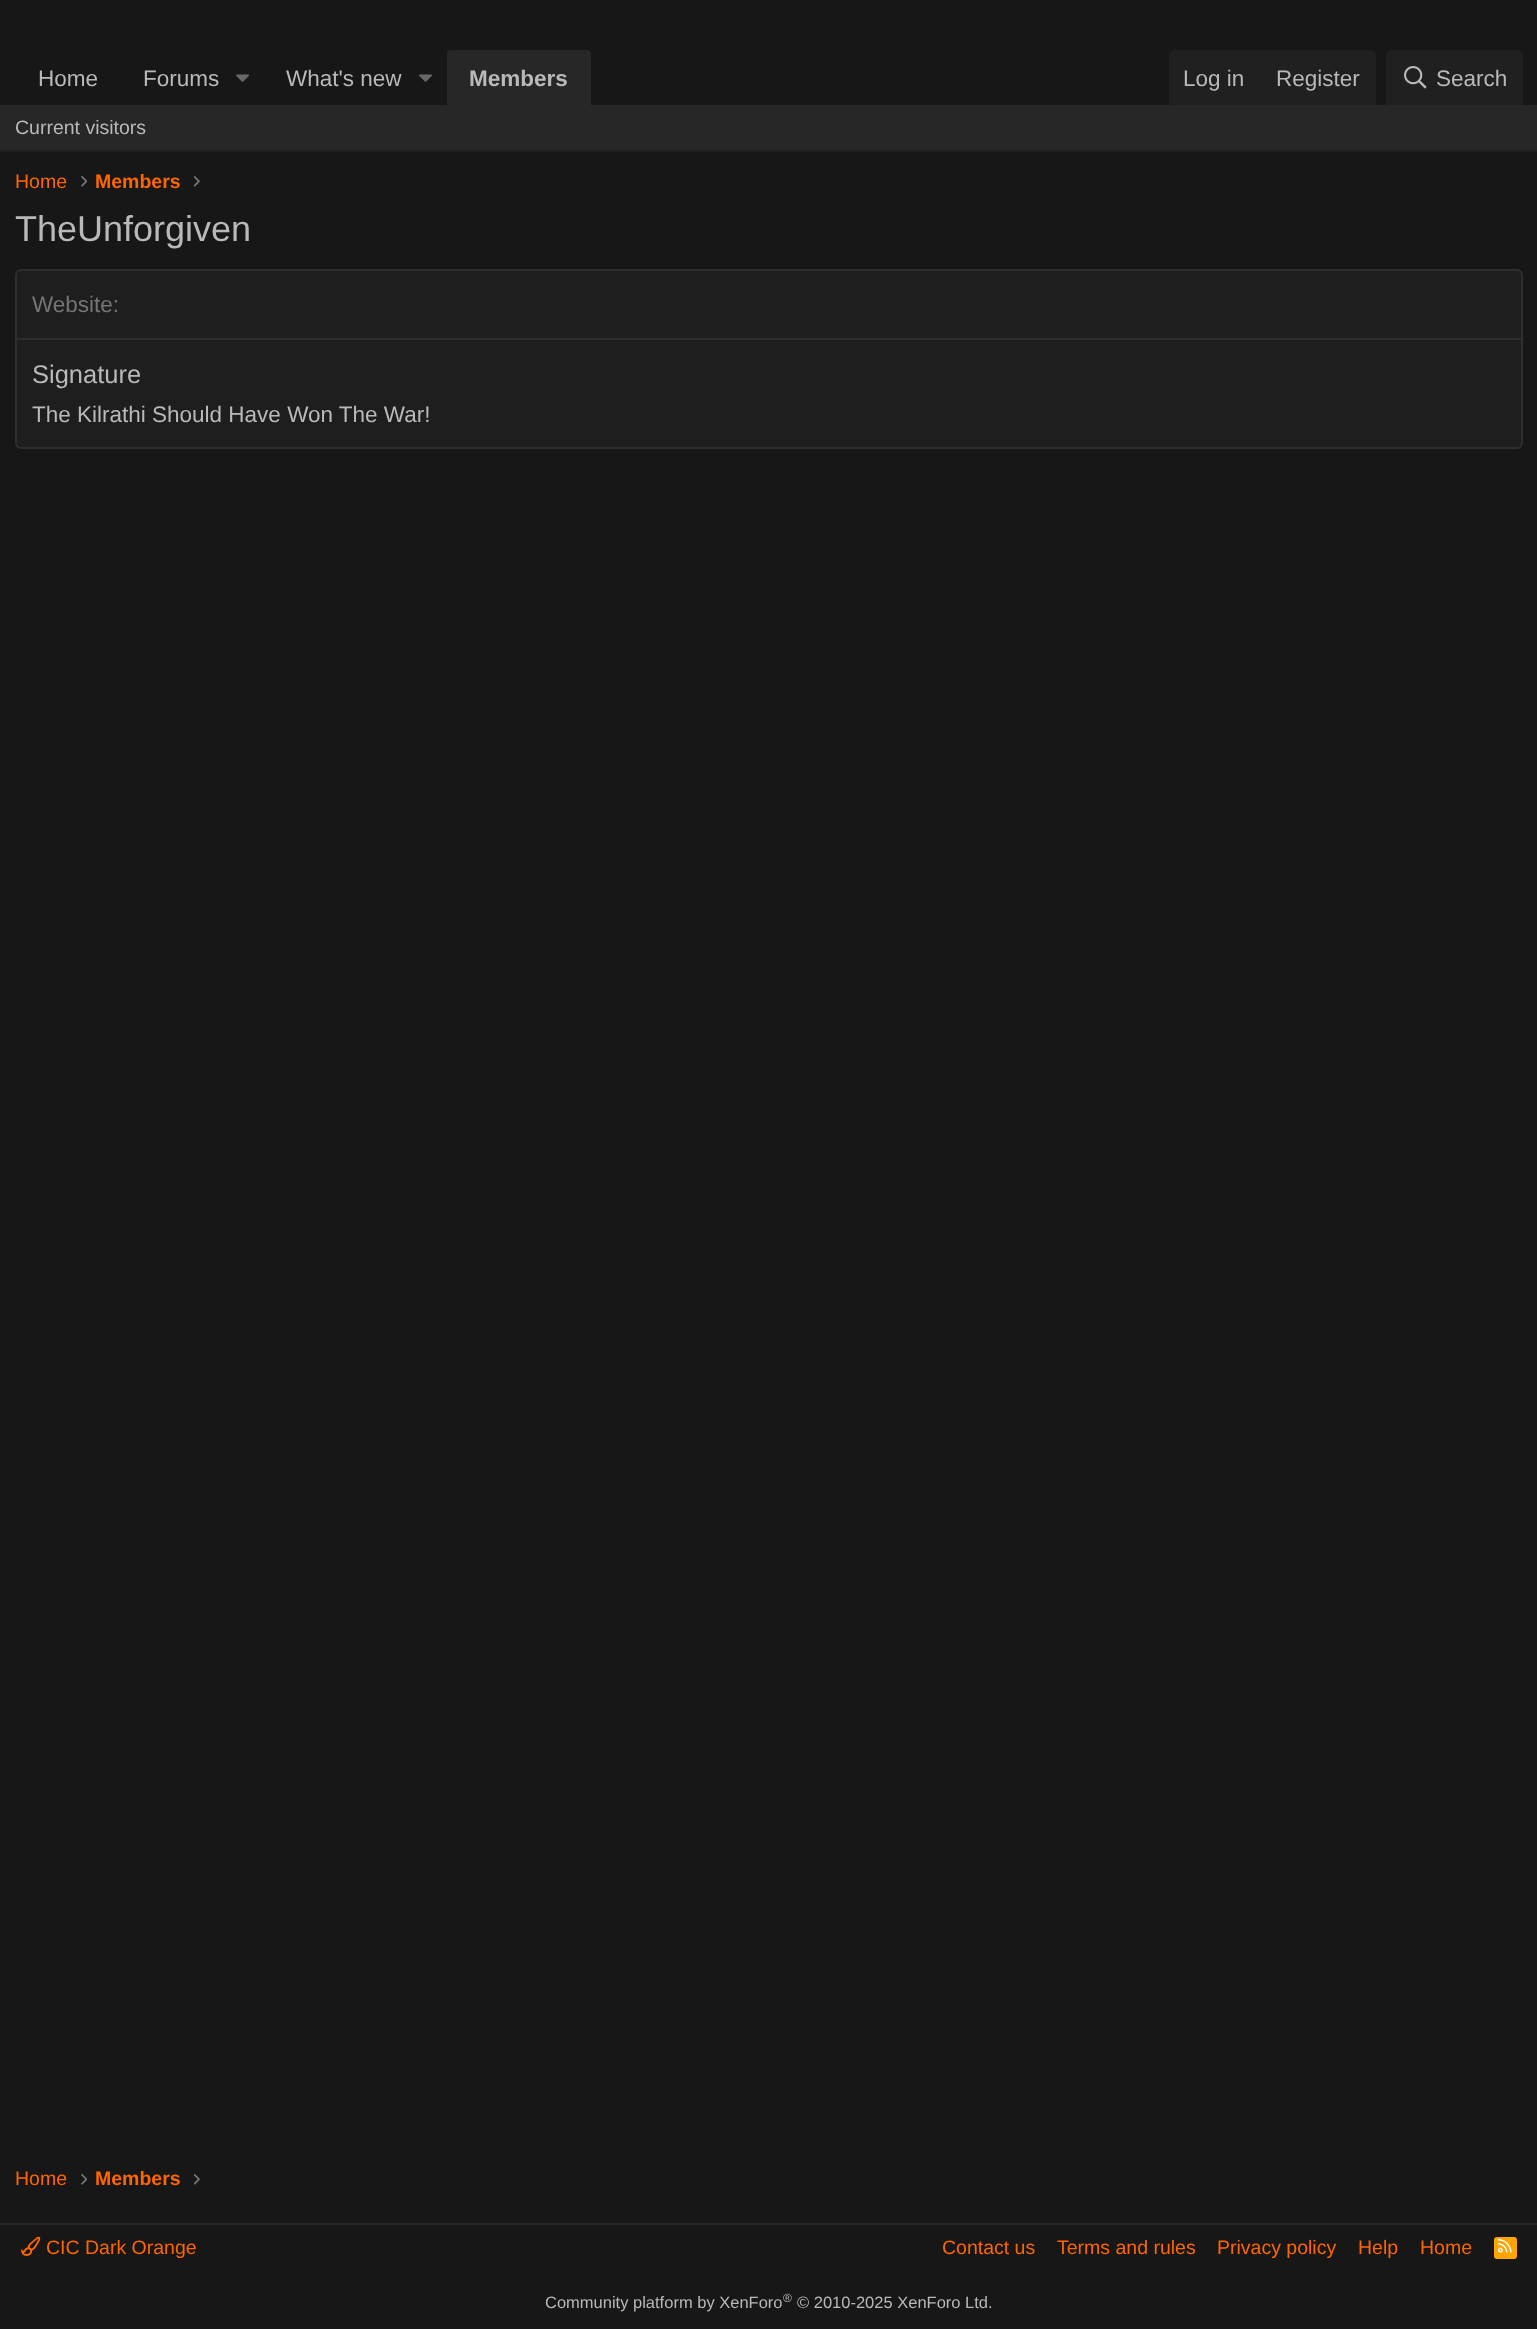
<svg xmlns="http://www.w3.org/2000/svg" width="1537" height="2329">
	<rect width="100%" height="100%" fill="#171717" />
	<g font-family="Liberation Sans" font-size="22.5" fill="#BAB8B8">
		<text x="38" y="86">Home</text>
		<text x="143" y="86">Forums</text>
	</g>
	<image x="236" y="74" width="13" height="8" href="assets/img1.png" />
	<text x="286" y="86" font-family="Liberation Sans" font-size="22.5" fill="#BAB8B8">What's new</text>
	<image x="419" y="74" width="13" height="8" href="assets/img1.png" />
	<path d="M450 50H588C589.5 50 591 51.5 591 53V105H447V53C447 51.5 448.5 50 450 50Z" fill="#282727" />
	<text x="469" y="86" font-family="Liberation Sans" font-size="22.5" font-weight="700" fill="#BAB8B8">Members</text>
	<path d="M1175 50H1370C1373.5 50 1376 52.5 1376 56V105H1169V56C1169 52.5 1171.5 50 1175 50Z" fill="#212020" />
	<g font-family="Liberation Sans" font-size="22.5" fill="#BAB8B8">
		<text x="1183" y="86">Log in</text>
		<text x="1276" y="86">Register</text>
	</g>
	<path d="M1392 50H1517C1520.5 50 1523 52.5 1523 56V105H1386V56C1386 52.5 1388.5 50 1392 50Z" fill="#212020" />
	<image x="1404" y="66" width="23" height="23" href="assets/img2.png" />
	<text x="1436" y="86" font-family="Liberation Sans" font-size="22.5" fill="#BAB8B8">Search</text>
	<rect x="0" y="105" width="1537" height="45" fill="#282727" />
	<rect x="0" y="150" width="1537" height="2" fill="#212020" />
	<text x="15" y="134" font-family="Liberation Sans" font-size="19.5" fill="#BAB8B8">Current visitors</text>
	<text x="15" y="188" font-family="Liberation Sans" font-size="19.5" fill="#FF6600">Home</text>
	<image x="81" y="175" width="6" height="12" href="assets/img3.png" />
	<text x="95" y="188" font-family="Liberation Sans" font-size="19.5" font-weight="700" fill="#FF6600">Members</text>
	<image x="194" y="175" width="6" height="12" href="assets/img4.png" />
	<text x="15" y="241" font-family="Liberation Sans" font-size="36" fill="#BAB8B8">TheUnforgiven</text>
	<rect x="16" y="270" width="1506" height="178" rx="5" fill="#1F1E1E" stroke="#2E2E2E" stroke-width="2" />
	<text x="32" y="312" font-family="Liberation Sans" font-size="22.5" fill="#767474">Website:</text>
	<rect x="17" y="338" width="1504" height="2" fill="#2E2E2E" />
	<text x="32" y="383" font-family="Liberation Sans" font-size="25.5" fill="#BAB8B8">Signature</text>
	<text x="32" y="422" font-family="Liberation Sans" font-size="22.5" fill="#BAB8B8">The Kilrathi Should Have Won The War!</text>
	<text x="15" y="2185" font-family="Liberation Sans" font-size="19.5" fill="#FF6600">Home</text>
	<image x="81" y="2173" width="6" height="12" href="assets/img3.png" />
	<text x="95" y="2185" font-family="Liberation Sans" font-size="19.5" font-weight="700" fill="#FF6600">Members</text>
	<image x="194" y="2173" width="6" height="12" href="assets/img4.png" />
	<rect x="0" y="2223" width="1537" height="2" fill="#282727" />
	<image x="21" y="2236" width="20" height="20" href="assets/img5.png" />
	<g font-family="Liberation Sans" font-size="19.5" fill="#FF6600">
		<text x="46" y="2254">CIC Dark Orange</text>
		<text x="942" y="2254">Contact us</text>
		<text x="1057" y="2254">Terms and rules</text>
		<text x="1217" y="2254">Privacy policy</text>
		<text x="1358" y="2254">Help</text>
		<text x="1420" y="2254">Home</text>
	</g>
	<rect x="1494" y="2237" width="23" height="22" rx="3" fill="#FFA500" />
	<image x="1498" y="2239" width="14" height="14" href="assets/img6.png" />
	<text x="545" y="2308" font-family="Liberation Sans" font-size="16.5" fill="#BAB8B8">Community platform by XenForo</text>
	<text x="783" y="2302" font-family="Liberation Sans" font-size="12" fill="#BAB8B8">®</text>
	<text x="797" y="2308" font-family="Liberation Sans" font-size="16.5" fill="#BAB8B8">© 2010-2025 XenForo Ltd.</text>
</svg>
